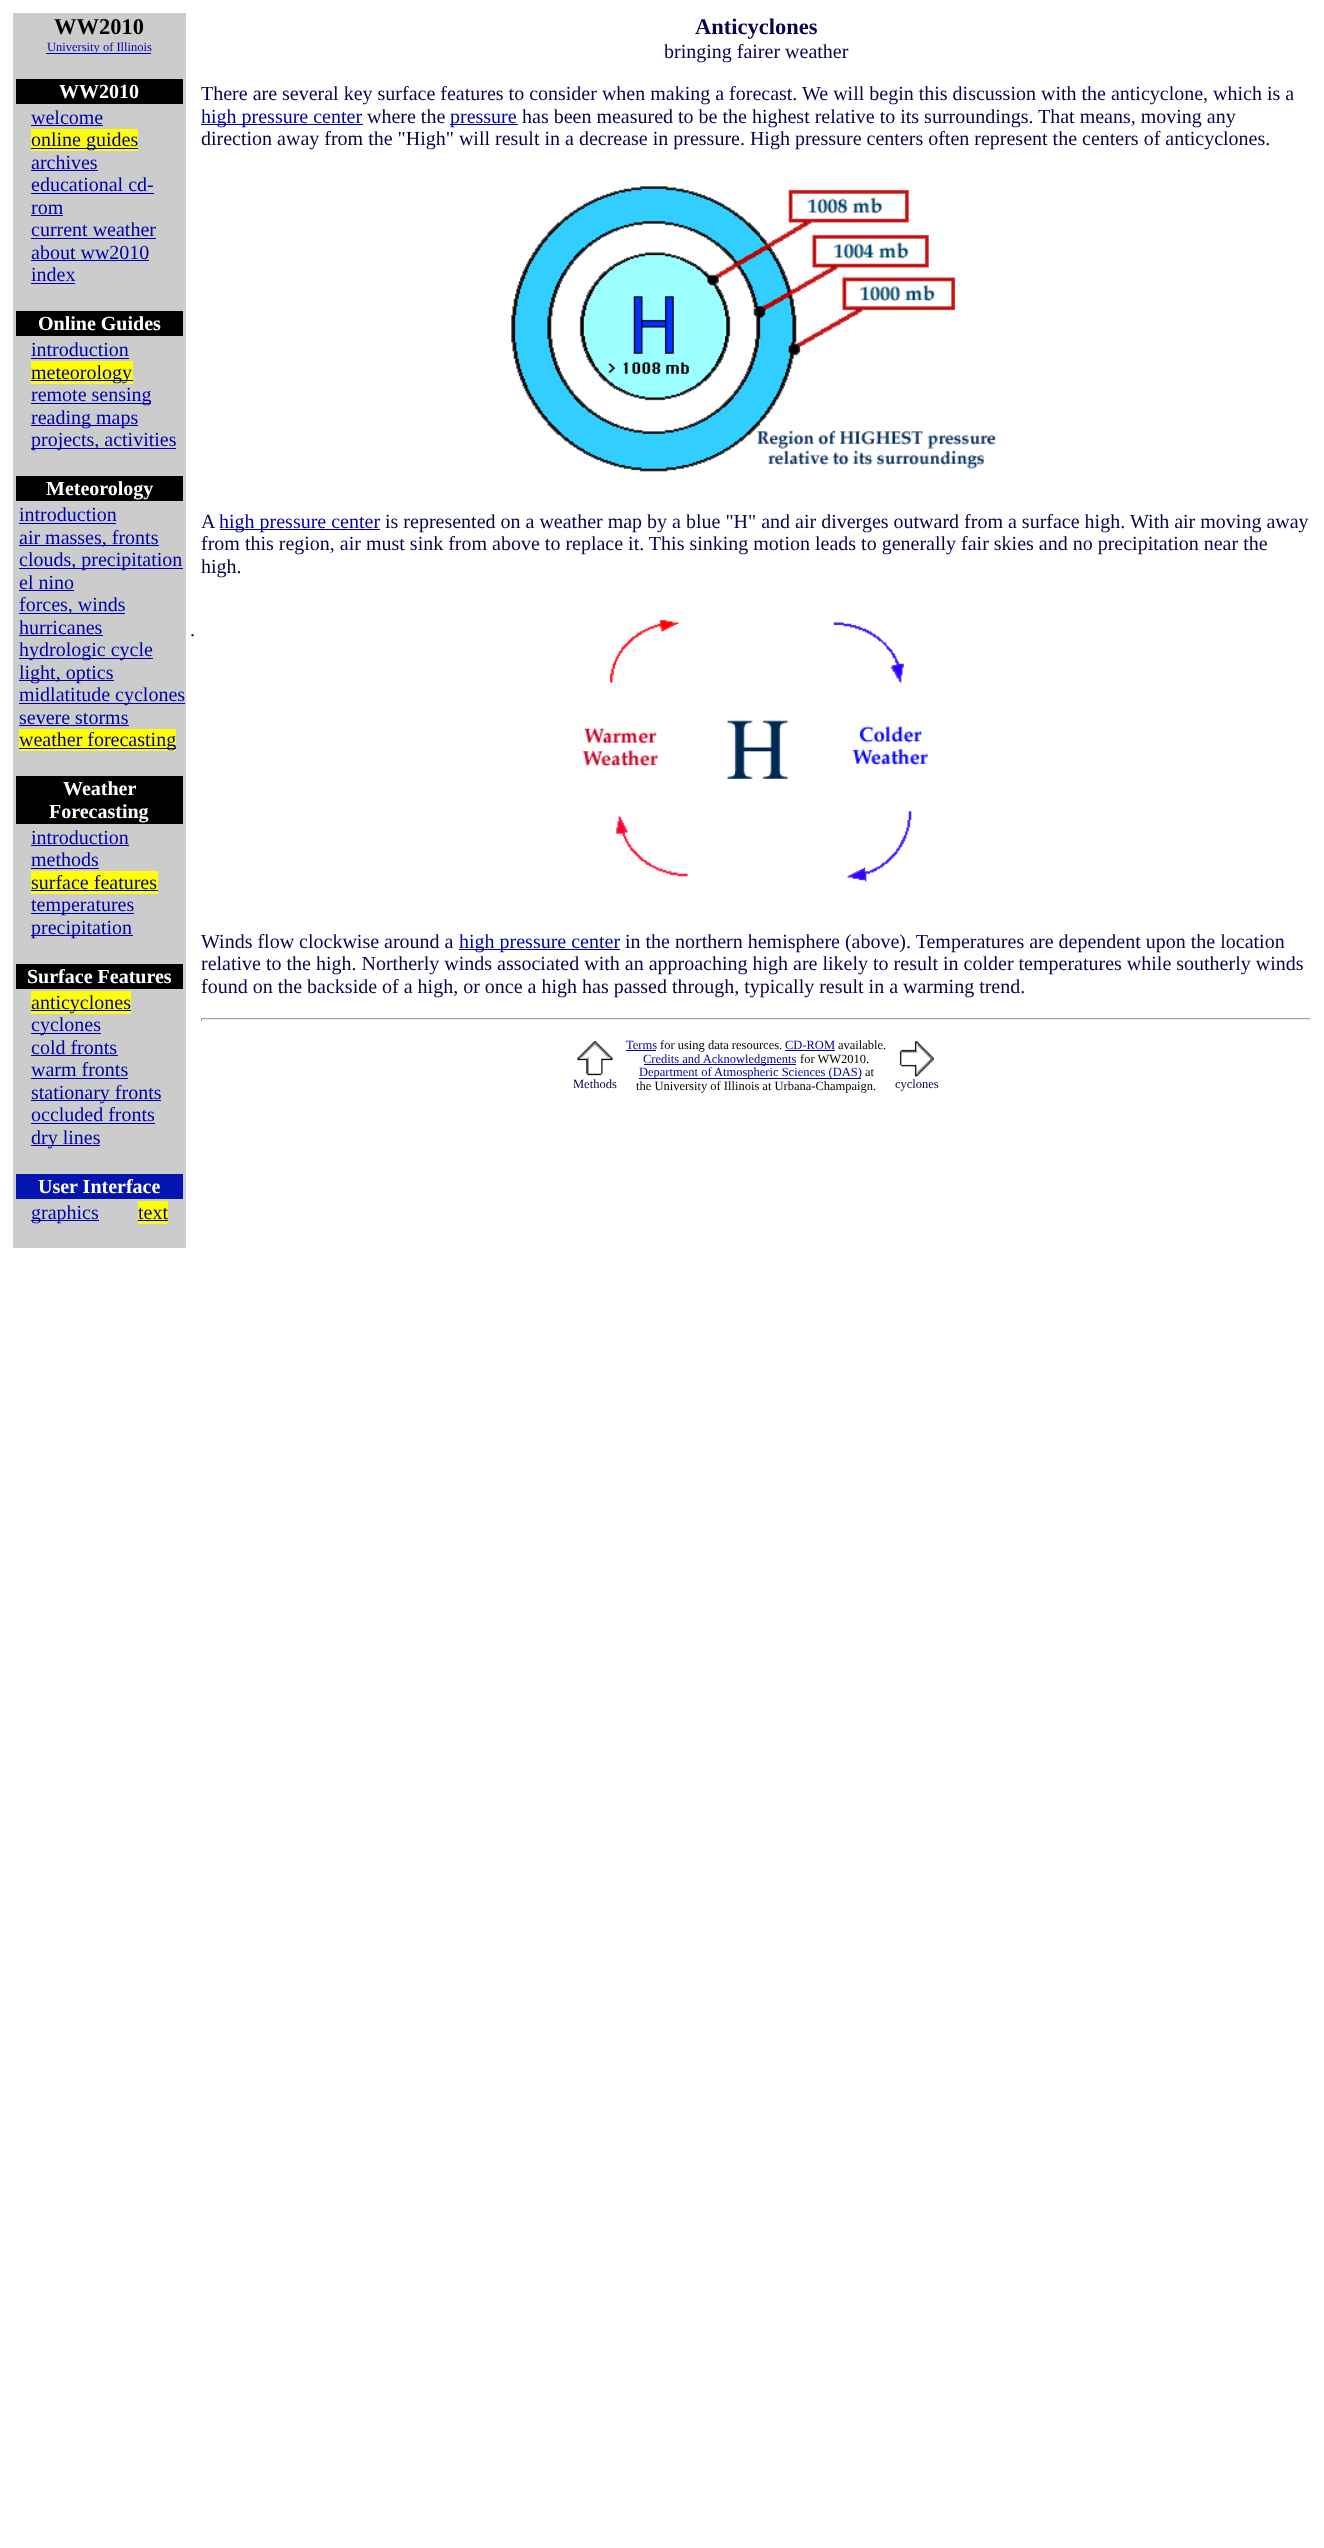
<svg xmlns="http://www.w3.org/2000/svg" width="1324" height="2548">
	<rect width="100%" height="100%" fill="#FFFFFF" />
	<rect x="13" y="13" width="173" height="1235" fill="#CCCCCC" />
	<text x="54" y="34" font-family="Liberation Serif" font-size="22.5" font-weight="700" fill="#000000">WW2010</text>
	<rect x="46" y="53" width="105" height="1" fill="#0000AA" />
	<text x="47" y="51" font-family="Liberation Serif" font-size="12.5" fill="#0000AA">University of Illinois</text>
	<rect x="16" y="79" width="167" height="25" fill="#000000" />
	<text x="59" y="98" font-family="Liberation Serif" font-size="20" font-weight="700" fill="#FFFFFF">WW2010</text>
	<text x="31" y="124" font-family="Liberation Serif" font-size="20" fill="#0000AA">welcome</text>
	<rect x="31" y="125" width="72" height="1" fill="#0000AA" />
	<rect x="31" y="129" width="107" height="22" fill="#FFFF00" />
	<rect x="31" y="148" width="107" height="1" fill="#0000AA" />
	<g font-family="Liberation Serif" font-size="20" fill="#0000AA">
		<text x="31" y="146">online guides</text>
		<text x="31" y="169">archives</text>
	</g>
	<rect x="31" y="170" width="67" height="1" fill="#0000AA" />
	<text x="31" y="191" font-family="Liberation Serif" font-size="20" fill="#0000AA">educational cd-</text>
	<rect x="31" y="193" width="123" height="1" fill="#0000AA" />
	<text x="31" y="214" font-family="Liberation Serif" font-size="20" fill="#0000AA">rom</text>
	<rect x="31" y="215" width="32" height="1" fill="#0000AA" />
	<text x="31" y="236" font-family="Liberation Serif" font-size="20" fill="#0000AA">current weather</text>
	<rect x="31" y="238" width="125" height="1" fill="#0000AA" />
	<text x="31" y="259" font-family="Liberation Serif" font-size="20" fill="#0000AA">about ww2010</text>
	<rect x="31" y="260" width="118" height="1" fill="#0000AA" />
	<text x="31" y="281" font-family="Liberation Serif" font-size="20" fill="#0000AA">index</text>
	<rect x="31" y="283" width="44" height="1" fill="#0000AA" />
	<rect x="16" y="311" width="167" height="25" fill="#000000" />
	<text x="38" y="330" font-family="Liberation Serif" font-size="20" font-weight="700" fill="#FFFFFF">Online Guides</text>
	<text x="31" y="356" font-family="Liberation Serif" font-size="20" fill="#0000AA">introduction</text>
	<rect x="31" y="358" width="98" height="1" fill="#0000AA" />
	<rect x="31" y="361" width="102" height="23" fill="#FFFF00" />
	<rect x="31" y="380" width="102" height="1" fill="#0000AA" />
	<text x="31" y="379" font-family="Liberation Serif" font-size="20" fill="#0000AA">meteorology</text>
	<rect x="31" y="403" width="120" height="1" fill="#0000AA" />
	<text x="31" y="401" font-family="Liberation Serif" font-size="20" fill="#0000AA">remote sensing</text>
	<rect x="31" y="425" width="107" height="1" fill="#0000AA" />
	<text x="31" y="424" font-family="Liberation Serif" font-size="20" fill="#0000AA">reading maps</text>
	<rect x="31" y="448" width="145" height="1" fill="#0000AA" />
	<text x="31" y="446" font-family="Liberation Serif" font-size="20" fill="#0000AA">projects, activities</text>
	<rect x="16" y="476" width="167" height="25" fill="#000000" />
	<text x="46" y="495" font-family="Liberation Serif" font-size="20" font-weight="700" fill="#FFFFFF">Meteorology</text>
	<text x="19" y="521" font-family="Liberation Serif" font-size="20" fill="#0000AA">introduction</text>
	<rect x="19" y="523" width="97" height="1" fill="#0000AA" />
	<rect x="19" y="545" width="140" height="1" fill="#0000AA" />
	<text x="19" y="544" font-family="Liberation Serif" font-size="20" fill="#0000AA">air masses, fronts</text>
	<rect x="19" y="568" width="164" height="1" fill="#0000AA" />
	<g font-family="Liberation Serif" font-size="20" fill="#0000AA">
		<text x="19" y="566">clouds, precipitation</text>
		<text x="19" y="589">el nino</text>
	</g>
	<rect x="19" y="590" width="55" height="1" fill="#0000AA" />
	<rect x="19" y="613" width="106" height="1" fill="#0000AA" />
	<g font-family="Liberation Serif" font-size="20" fill="#0000AA">
		<text x="19" y="611">forces, winds</text>
		<text x="19" y="634">hurricanes</text>
	</g>
	<rect x="19" y="635" width="84" height="1" fill="#0000AA" />
	<rect x="19" y="658" width="134" height="1" fill="#0000AA" />
	<text x="19" y="656" font-family="Liberation Serif" font-size="20" fill="#0000AA">hydrologic cycle</text>
	<rect x="19" y="680" width="95" height="1" fill="#0000AA" />
	<text x="19" y="679" font-family="Liberation Serif" font-size="20" fill="#0000AA">light, optics</text>
	<rect x="19" y="703" width="166" height="1" fill="#0000AA" />
	<g font-family="Liberation Serif" font-size="20" fill="#0000AA">
		<text x="19" y="701">midlatitude cyclones</text>
		<text x="19" y="724">severe storms</text>
	</g>
	<rect x="19" y="725" width="110" height="1" fill="#0000AA" />
	<rect x="19" y="729" width="157" height="22" fill="#FFFF00" />
	<rect x="19" y="748" width="157" height="1" fill="#0000AA" />
	<text x="19" y="746" font-family="Liberation Serif" font-size="20" fill="#0000AA">weather forecasting</text>
	<rect x="16" y="776" width="167" height="48" fill="#000000" />
	<g font-family="Liberation Serif" font-size="20" font-weight="700" fill="#FFFFFF">
		<text x="63" y="795">Weather</text>
		<text x="49" y="818">Forecasting</text>
	</g>
	<text x="31" y="844" font-family="Liberation Serif" font-size="20" fill="#0000AA">introduction</text>
	<rect x="31" y="845" width="98" height="1" fill="#0000AA" />
	<text x="31" y="866" font-family="Liberation Serif" font-size="20" fill="#0000AA">methods</text>
	<rect x="31" y="868" width="68" height="1" fill="#0000AA" />
	<rect x="31" y="871" width="127" height="23" fill="#FFFF00" />
	<text x="31" y="889" font-family="Liberation Serif" font-size="20" fill="#0000AA">surface features</text>
	<rect x="31" y="890" width="127" height="1" fill="#0000AA" />
	<rect x="31" y="913" width="103" height="1" fill="#0000AA" />
	<text x="31" y="911" font-family="Liberation Serif" font-size="20" fill="#0000AA">temperatures</text>
	<rect x="31" y="935" width="102" height="1" fill="#0000AA" />
	<text x="31" y="934" font-family="Liberation Serif" font-size="20" fill="#0000AA">precipitation</text>
	<rect x="16" y="964" width="167" height="25" fill="#000000" />
	<text x="27" y="983" font-family="Liberation Serif" font-size="20" font-weight="700" fill="#FFFFFF">Surface Features</text>
	<rect x="31" y="991" width="100" height="23" fill="#FFFF00" />
	<rect x="31" y="1010" width="100" height="1" fill="#0000AA" />
	<text x="31" y="1009" font-family="Liberation Serif" font-size="20" fill="#0000AA">anticyclones</text>
	<rect x="31" y="1033" width="70" height="1" fill="#0000AA" />
	<g font-family="Liberation Serif" font-size="20" fill="#0000AA">
		<text x="31" y="1031">cyclones</text>
		<text x="31" y="1054">cold fronts</text>
	</g>
	<rect x="31" y="1055" width="87" height="1" fill="#0000AA" />
	<text x="31" y="1076" font-family="Liberation Serif" font-size="20" fill="#0000AA">warm fronts</text>
	<rect x="31" y="1078" width="97" height="1" fill="#0000AA" />
	<rect x="31" y="1100" width="130" height="1" fill="#0000AA" />
	<g font-family="Liberation Serif" font-size="20" fill="#0000AA">
		<text x="31" y="1099">stationary fronts</text>
		<text x="31" y="1121">occluded fronts</text>
	</g>
	<rect x="31" y="1123" width="124" height="1" fill="#0000AA" />
	<rect x="31" y="1145" width="69" height="1" fill="#0000AA" />
	<text x="31" y="1144" font-family="Liberation Serif" font-size="20" fill="#0000AA">dry lines</text>
	<rect x="16" y="1174" width="167" height="25" fill="#0414AF" />
	<text x="38" y="1193" font-family="Liberation Serif" font-size="20" font-weight="700" fill="#FFFFFF">User Interface</text>
	<rect x="31" y="1220" width="68" height="1" fill="#0000AA" />
	<text x="31" y="1219" font-family="Liberation Serif" font-size="20" fill="#0000AA">graphics</text>
	<rect x="138" y="1201" width="30" height="23" fill="#FFFF00" />
	<text x="138" y="1219" font-family="Liberation Serif" font-size="20" fill="#0000AA">text</text>
	<rect x="138" y="1220" width="30" height="1" fill="#0000AA" />
	<text x="190" y="636" font-family="Liberation Serif" font-size="20" fill="#04054D">.</text>
	<text x="695" y="34" font-family="Liberation Serif" font-size="22.5" font-weight="700" fill="#04054D">Anticyclones</text>
	<g font-family="Liberation Serif" font-size="20" fill="#04054D">
		<text x="664" y="58">bringing fairer weather</text>
		<text x="201" y="100">There are several key surface features to consider when making a forecast. We will begin this discussion with the anticyclone, which is a</text>
	</g>
	<rect x="201" y="124" width="162" height="1" fill="#0000AA" />
	<text x="201" y="123" font-family="Liberation Serif" font-size="20" fill="#0000AA">high pressure center</text>
	<text x="367" y="123" font-family="Liberation Serif" font-size="20" fill="#04054D">where the</text>
	<rect x="450" y="124" width="68" height="1" fill="#0000AA" />
	<text x="450" y="123" font-family="Liberation Serif" font-size="20" fill="#0000AA">pressure</text>
	<g font-family="Liberation Serif" font-size="20" fill="#04054D">
		<text x="522" y="123">has been measured to be the highest relative to its surroundings.</text>
		<text x="1038" y="123">That means, moving any</text>
		<text x="201" y="145">direction away from the "High" will result in a decrease in pressure. High pressure centers often represent the centers of anticyclones.</text>
	</g>
	<image x="511" y="186" width="485" height="286" href="assets/img1.png" />
	<text x="201" y="528" font-family="Liberation Serif" font-size="20" fill="#04054D">A</text>
	<rect x="220" y="529" width="160" height="1" fill="#0000AA" />
	<text x="219" y="528" font-family="Liberation Serif" font-size="20" fill="#0000AA">high pressure center</text>
	<g font-family="Liberation Serif" font-size="20" fill="#04054D">
		<text x="385" y="528">is represented on a weather map by a blue "H" and air diverges outward from a surface high.</text>
		<text x="1130" y="528">With air moving away</text>
		<text x="201" y="550">from this region, air must sink from above to replace it. This sinking motion leads to generally fair skies and no precipitation near the</text>
		<text x="201" y="573">high.</text>
	</g>
	<image x="582" y="619" width="346" height="263" href="assets/img2.png" />
	<text x="201" y="948" font-family="Liberation Serif" font-size="20" fill="#04054D">Winds flow clockwise around a</text>
	<rect x="459" y="949" width="161" height="1" fill="#0000AA" />
	<text x="459" y="948" font-family="Liberation Serif" font-size="20" fill="#0000AA">high pressure center</text>
	<g font-family="Liberation Serif" font-size="20" fill="#04054D">
		<text x="625" y="948">in the northern hemisphere (above). Temperatures are dependent upon the location</text>
		<text x="201" y="970">relative to the high. Northerly winds associated with an approaching high are likely to result in colder temperatures while southerly winds</text>
		<text x="201" y="993">found on the backside of a high, or once a high has passed through, typically result in a warming trend.</text>
	</g>
	<rect x="201" y="1018" width="1110" height="1" fill="#9F9F9F" />
	<rect x="1310" y="1018" width="1" height="3" fill="#EEEEEE" />
	<rect x="201" y="1019" width="1110" height="1" fill="#EEEEEE" />
	<rect x="201" y="1018" width="1" height="3" fill="#9F9F9F" />
	<image x="577" y="1041" width="36" height="35" href="assets/img3.png" />
	<text x="573" y="1088" font-family="Liberation Serif" font-size="12.5" fill="#04054D">Methods</text>
	<text x="626" y="1049" font-family="Liberation Serif" font-size="12.5" fill="#0000AA">Terms</text>
	<rect x="626" y="1050" width="30" height="1" fill="#0000AA" />
	<text x="660" y="1049" font-family="Liberation Serif" font-size="12.5" fill="#000000">for using data resources.</text>
	<text x="785" y="1049" font-family="Liberation Serif" font-size="12.5" fill="#0000AA">CD-ROM</text>
	<rect x="785" y="1050" width="50" height="1" fill="#0000AA" />
	<text x="838" y="1049" font-family="Liberation Serif" font-size="12.5" fill="#000000">available.</text>
	<rect x="644" y="1064" width="152" height="1" fill="#0000AA" />
	<text x="643" y="1063" font-family="Liberation Serif" font-size="12.5" fill="#0000AA">Credits and Acknowledgments</text>
	<text x="800" y="1063" font-family="Liberation Serif" font-size="12.5" fill="#000000">for WW2010.</text>
	<rect x="639" y="1078" width="222" height="1" fill="#0000AA" />
	<text x="639" y="1076" font-family="Liberation Serif" font-size="12.5" fill="#0000AA">Department of Atmospheric Sciences (DAS)</text>
	<g font-family="Liberation Serif" font-size="12.5" fill="#000000">
		<text x="865" y="1076">at</text>
		<text x="636" y="1090">the University of Illinois at Urbana-Champaign.</text>
	</g>
	<image x="899" y="1041" width="35" height="36" href="assets/img4.png" />
	<text x="895" y="1088" font-family="Liberation Serif" font-size="12.5" fill="#04054D">cyclones</text>
</svg>
